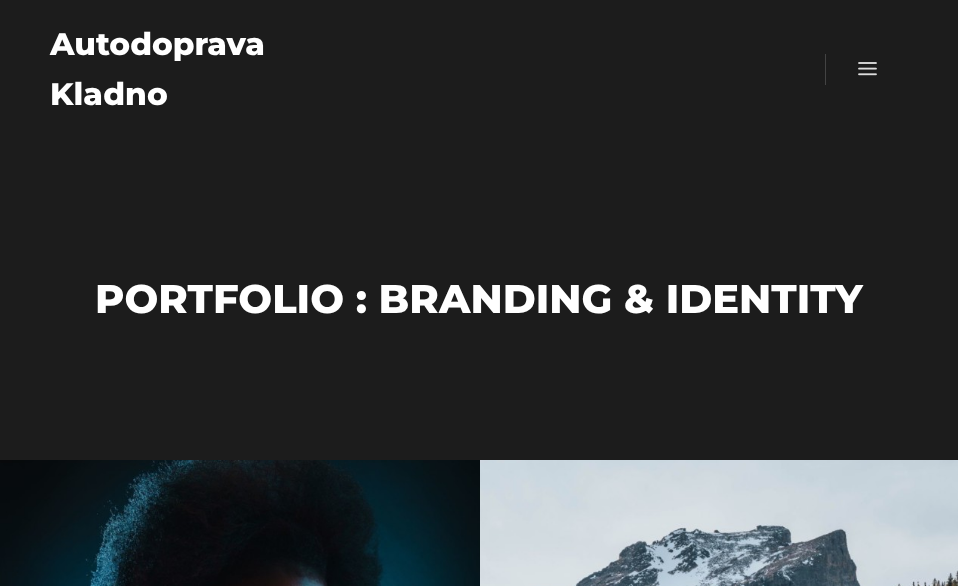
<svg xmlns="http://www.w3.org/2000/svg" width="958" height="586">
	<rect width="100%" height="100%" fill="#1C1C1C" />
	<g font-family="Montserrat" font-size="31.25" font-weight="800" fill="#FFFFFF">
		<text x="50" y="55">Autodoprava</text>
		<text x="50" y="105">Kladno</text>
	</g>
	<rect x="825" y="54" width="1" height="31" fill="#434343" />
	<image x="858" y="62" width="19" height="14" href="assets/img1.png" />
	<text x="95" y="313" font-family="Montserrat" font-size="40" font-weight="800" fill="#FFFFFF">PORTFOLIO : BRANDING &amp; IDENTITY</text>
	<image x="0" y="460" width="480" height="126" href="assets/img2.png" />
	<image x="480" y="460" width="478" height="126" href="assets/img3.png" />
</svg>
